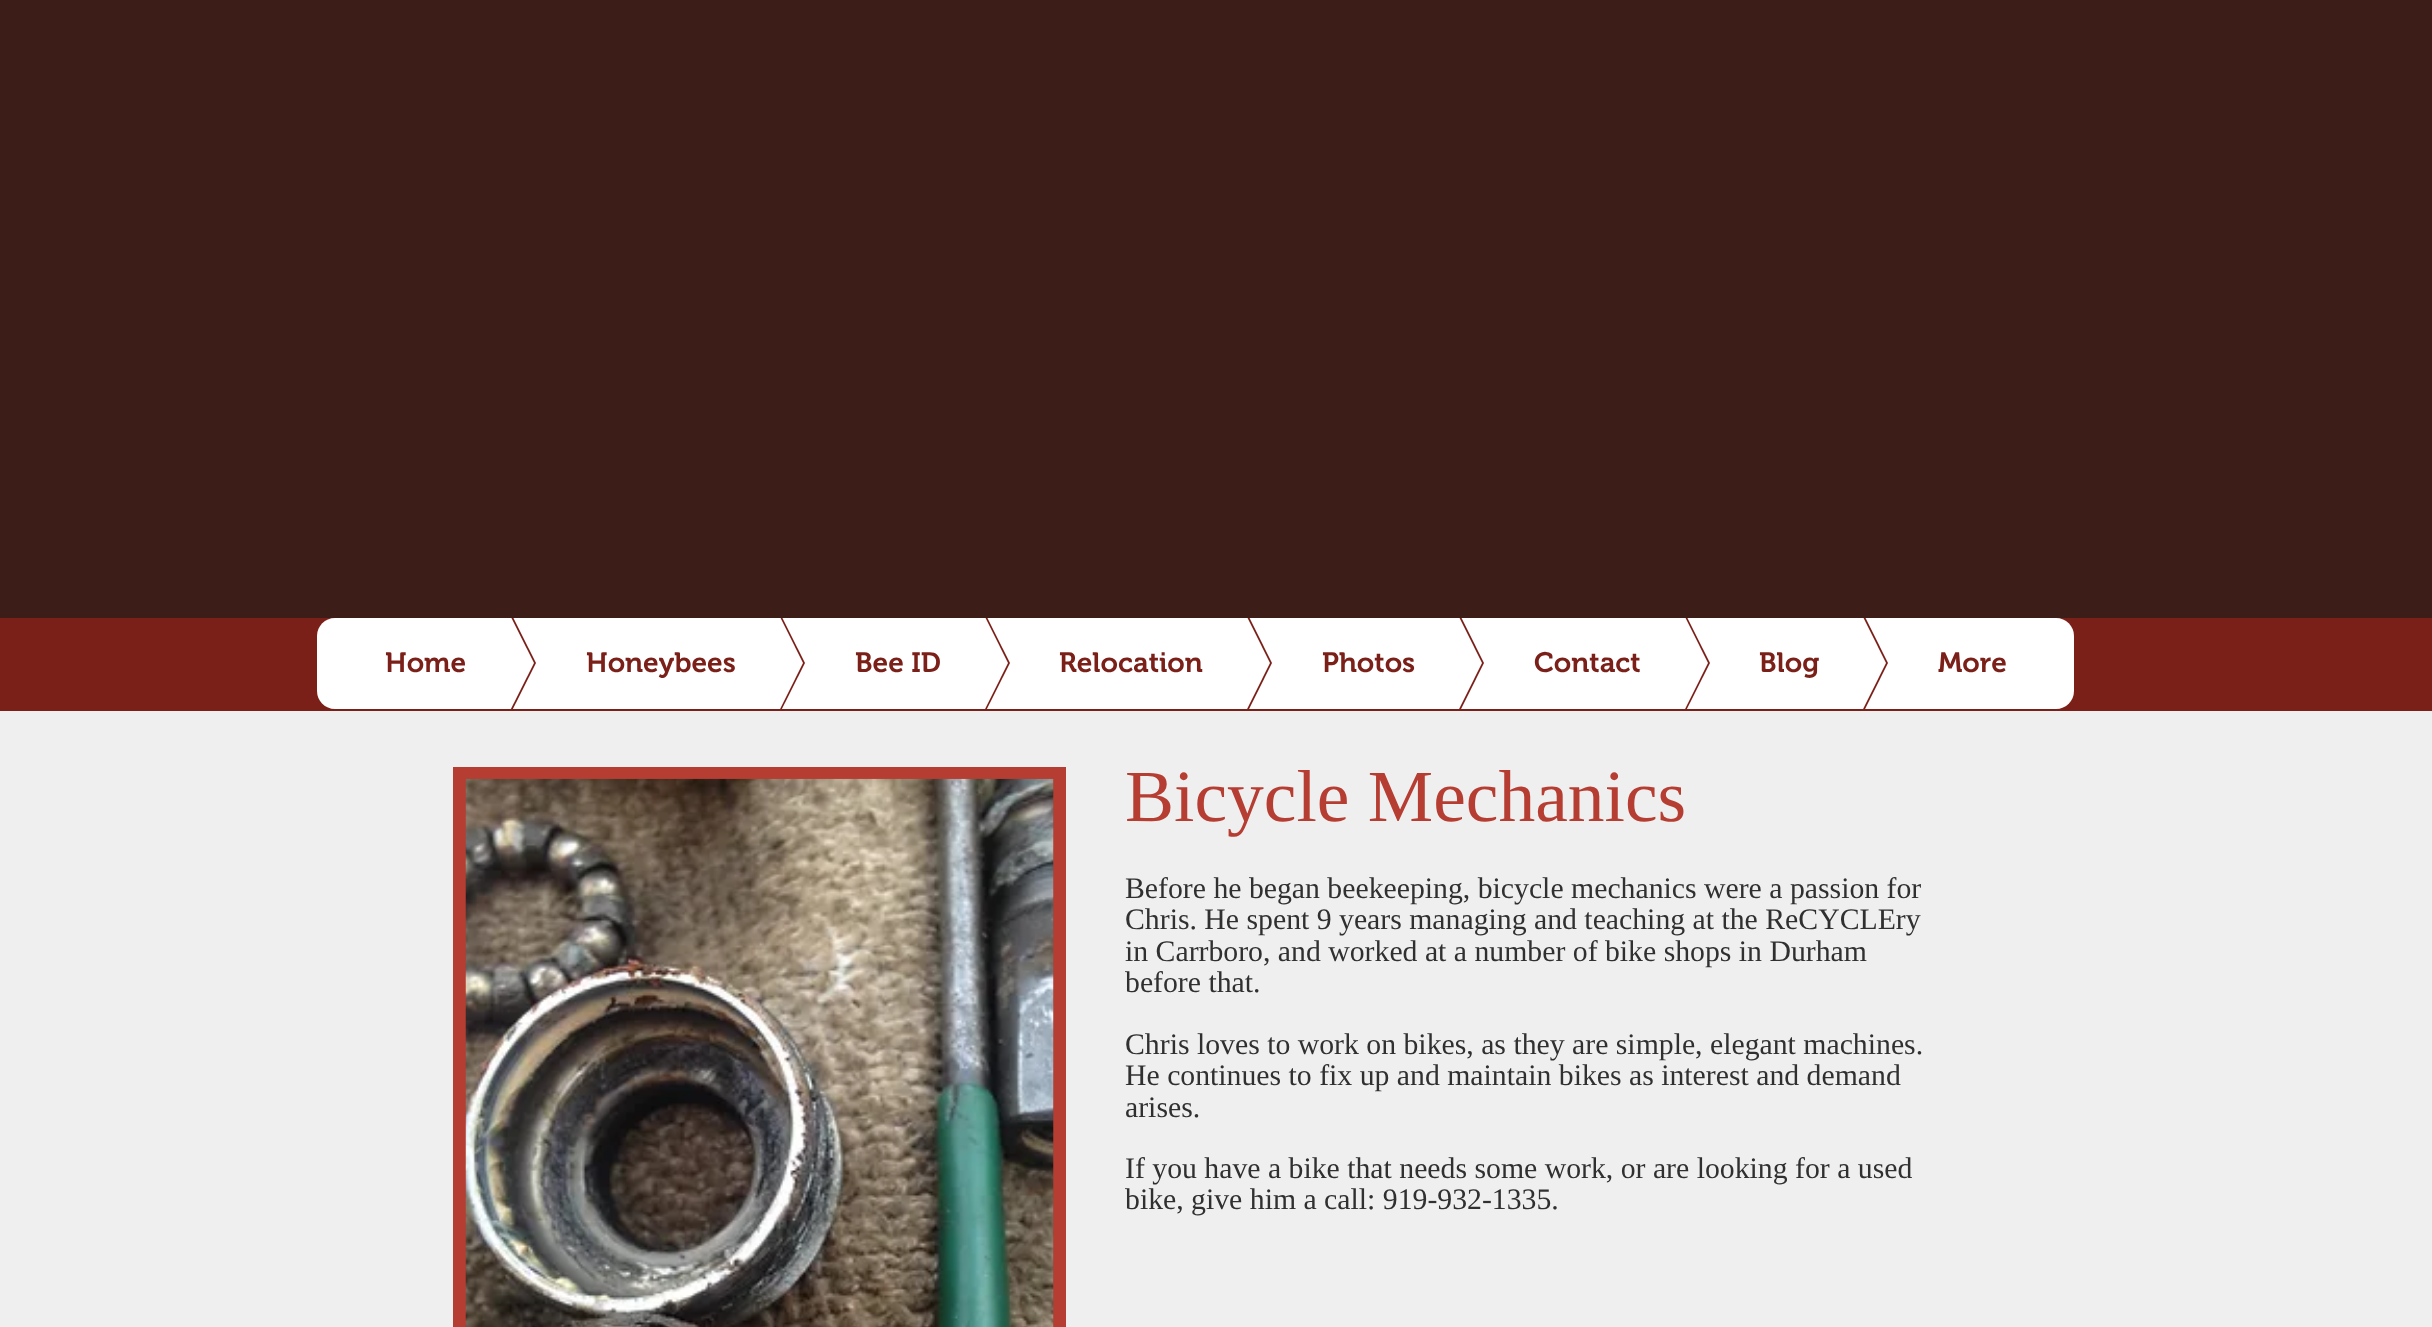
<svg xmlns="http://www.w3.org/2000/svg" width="2432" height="1327">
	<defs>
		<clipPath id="clip1"><rect x="411" y="618" width="123" height="91" /></clipPath>
		<clipPath id="clip2"><rect x="413" y="618" width="123" height="91" /></clipPath>
		<clipPath id="clip3"><rect x="681" y="618" width="122" height="91" /></clipPath>
		<clipPath id="clip4"><rect x="683" y="618" width="122" height="91" /></clipPath>
		<clipPath id="clip5"><rect x="886" y="618" width="122" height="91" /></clipPath>
		<clipPath id="clip6"><rect x="887" y="618" width="123" height="91" /></clipPath>
		<clipPath id="clip7"><rect x="1148" y="618" width="123" height="91" /></clipPath>
		<clipPath id="clip8"><rect x="1150" y="618" width="122" height="91" /></clipPath>
		<clipPath id="clip9"><rect x="1360" y="618" width="122" height="91" /></clipPath>
		<clipPath id="clip10"><rect x="1362" y="618" width="122" height="91" /></clipPath>
		<clipPath id="clip11"><rect x="1586" y="618" width="122" height="91" /></clipPath>
		<clipPath id="clip12"><rect x="1587" y="618" width="123" height="91" /></clipPath>
		<clipPath id="clip13"><rect x="1764" y="618" width="123" height="91" /></clipPath>
		<clipPath id="clip14"><rect x="1766" y="618" width="122" height="91" /></clipPath>
	</defs>
	<rect width="100%" height="100%" fill="#EFEFEF" />
	<rect x="0" y="618" width="2432" height="93" fill="#7B2019" />
	<rect x="0" y="0" width="2432" height="618" fill="#3C1D17" />
	<path d="M335 618H411V709H335C325 709 317 701 317 691V636C317 626 325 618 335 618Z" fill="#FFFFFF" />
	<g clip-path="url(#clip1)">
		<path d="M534 663H411V418Z" fill="#FFFFFF" />
		<path d="M411 663H534L411 908Z" fill="#FFFFFF" />
	</g>
	<text x="385" y="672" font-family="'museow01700'" font-size="28" font-weight="600" fill="#7B2019">Home</text>
	<g clip-path="url(#clip2)">
		<path d="M413 418H536V663Z" fill="#FFFFFF" />
		<path d="M536 908H413L536 663Z" fill="#FFFFFF" />
	</g>
	<rect x="536" y="618" width="145" height="91" fill="#FFFFFF" />
	<g clip-path="url(#clip3)">
		<path d="M803 663H681V418Z" fill="#FFFFFF" />
		<path d="M681 663H803L681 908Z" fill="#FFFFFF" />
	</g>
	<text x="586" y="672" font-family="'museow01700'" font-size="28" font-weight="600" fill="#7B2019">Honeybees</text>
	<g clip-path="url(#clip4)">
		<path d="M682 418H805V663Z" fill="#FFFFFF" />
		<path d="M805 908H682L805 663Z" fill="#FFFFFF" />
	</g>
	<rect x="805" y="618" width="81" height="91" fill="#FFFFFF" />
	<g clip-path="url(#clip5)">
		<path d="M1008 663H886V418Z" fill="#FFFFFF" />
		<path d="M886 663H1008L886 908Z" fill="#FFFFFF" />
	</g>
	<text x="855" y="672" font-family="'museow01700'" font-size="28" font-weight="600" fill="#7B2019">Bee ID</text>
	<g clip-path="url(#clip6)">
		<path d="M887 418H1010V663Z" fill="#FFFFFF" />
		<path d="M1010 908H887L1010 663Z" fill="#FFFFFF" />
	</g>
	<rect x="1010" y="618" width="138" height="91" fill="#FFFFFF" />
	<g clip-path="url(#clip7)">
		<path d="M1270 663H1148V418Z" fill="#FFFFFF" />
		<path d="M1148 663H1270L1148 908Z" fill="#FFFFFF" />
	</g>
	<text x="1059" y="672" font-family="'museow01700'" font-size="28" font-weight="600" fill="#7B2019">Relocation</text>
	<g clip-path="url(#clip8)">
		<path d="M1150 418H1272V663Z" fill="#FFFFFF" />
		<path d="M1272 908H1150L1272 663Z" fill="#FFFFFF" />
	</g>
	<rect x="1272" y="618" width="88" height="91" fill="#FFFFFF" />
	<g clip-path="url(#clip9)">
		<path d="M1482 663H1360V418Z" fill="#FFFFFF" />
		<path d="M1360 663H1482L1360 908Z" fill="#FFFFFF" />
	</g>
	<text x="1322" y="672" font-family="'museow01700'" font-size="28" font-weight="600" fill="#7B2019">Photos</text>
	<g clip-path="url(#clip10)">
		<path d="M1362 418H1484V663Z" fill="#FFFFFF" />
		<path d="M1484 908H1362L1484 663Z" fill="#FFFFFF" />
	</g>
	<rect x="1484" y="618" width="102" height="91" fill="#FFFFFF" />
	<g clip-path="url(#clip11)">
		<path d="M1708 663H1586V418Z" fill="#FFFFFF" />
		<path d="M1586 663H1708L1586 908Z" fill="#FFFFFF" />
	</g>
	<text x="1534" y="672" font-family="'museow01700'" font-size="28" font-weight="600" fill="#7B2019">Contact</text>
	<g clip-path="url(#clip12)">
		<path d="M1587 418H1710V663Z" fill="#FFFFFF" />
		<path d="M1710 908H1587L1710 663Z" fill="#FFFFFF" />
	</g>
	<rect x="1710" y="618" width="54" height="91" fill="#FFFFFF" />
	<g clip-path="url(#clip13)">
		<path d="M1886 663H1764V418Z" fill="#FFFFFF" />
		<path d="M1764 663H1886L1764 908Z" fill="#FFFFFF" />
	</g>
	<text x="1759" y="672" font-family="'museow01700'" font-size="28" font-weight="600" fill="#7B2019">Blog</text>
	<g clip-path="url(#clip14)">
		<path d="M1766 418H1888V663Z" fill="#FFFFFF" />
		<path d="M1888 908H1766L1888 663Z" fill="#FFFFFF" />
	</g>
	<rect x="1888" y="618" width="63" height="91" fill="#FFFFFF" />
	<path d="M1951 618H2056C2066 618 2074 626 2074 636V691C2074 701 2066 709 2056 709H1951Z" fill="#FFFFFF" />
	<text x="1938" y="672" font-family="'museow01700'" font-size="28" font-weight="600" fill="#7B2019">More</text>
	<rect x="453" y="767" width="613" height="560" fill="#B63D32" />
	<image x="465" y="778" width="589" height="549" href="assets/img1.png" />
	<text x="1125" y="821" font-family="Liberation Serif" font-size="73.5" fill="#B63D32">Bicycle Mechanics</text>
	<g font-family="Liberation Serif" font-size="29.75" fill="#303030">
		<text x="1125" y="898">Before he began beekeeping, bicycle mechanics were a passion for</text>
		<text x="1125" y="929">Chris. He spent 9 years managing and teaching at the ReCYCLEry</text>
		<text x="1125" y="961">in Carrboro, and worked at a number of bike shops in Durham</text>
		<text x="1125" y="992">before that.</text>
		<text x="1125" y="1054">Chris loves to work on bikes, as they are simple, elegant machines.</text>
		<text x="1125" y="1085">He continues to fix up and maintain bikes as interest and demand</text>
		<text x="1125" y="1117">arises.</text>
		<text x="1125" y="1178">If you have a bike that needs some work, or are looking for a used</text>
		<text x="1125" y="1209">bike, give him a call: 919-932-1335.</text>
	</g>
</svg>
